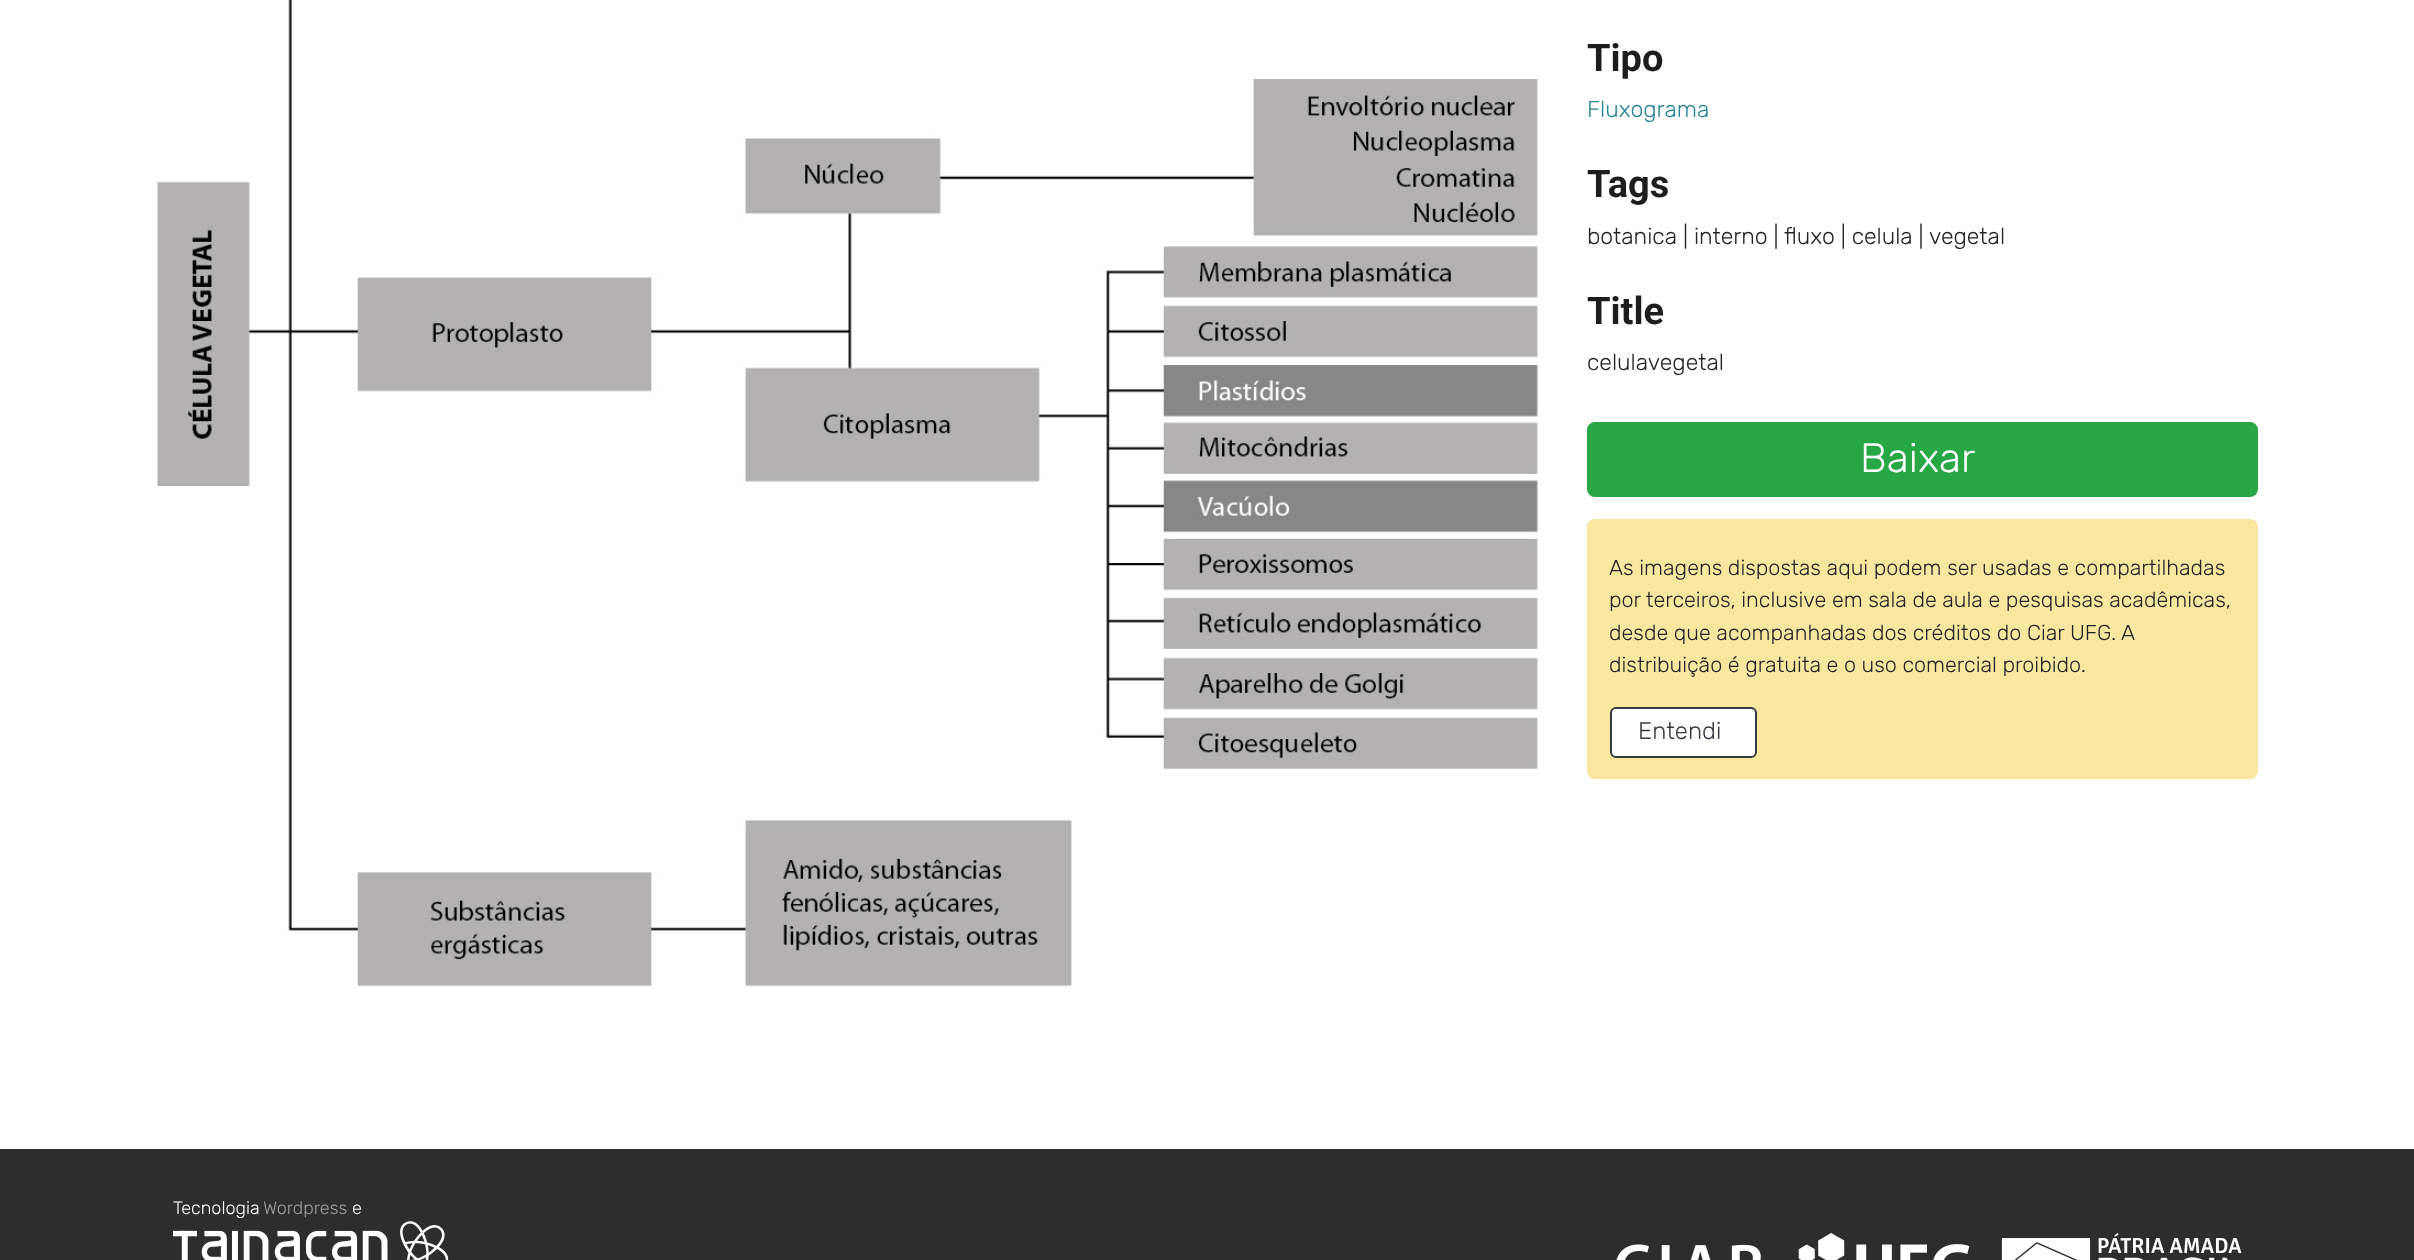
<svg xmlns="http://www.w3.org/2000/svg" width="2414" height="1260">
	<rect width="100%" height="100%" fill="#FFFFFF" />
	<image x="157" y="0" width="1381" height="987" href="assets/img1.png" />
	<text x="1587" y="71" font-family="Roboto" font-size="38" font-weight="700" fill="#1D1D1D">Tipo</text>
	<text x="1587" y="117" font-family="Rubik" font-size="23" font-weight="300" fill="#298596">Fluxograma</text>
	<text x="1587" y="197" font-family="Roboto" font-size="38" font-weight="700" fill="#1D1D1D">Tags</text>
	<g font-family="Rubik" font-size="23" font-weight="300" fill="#212529">
		<text x="1587" y="244">botanica | interno | fluxo | celula |</text>
		<text x="1929" y="244">vegetal</text>
	</g>
	<text x="1587" y="324" font-family="Roboto" font-size="38" font-weight="700" fill="#1D1D1D">Title</text>
	<text x="1587" y="370" font-family="Rubik" font-size="23" font-weight="300" fill="#212529">celulavegetal</text>
	<rect x="1588" y="423" width="669" height="73" rx="7" fill="#28A745" stroke="#28A745" stroke-width="2" />
	<text x="1860" y="472" font-family="Rubik" font-size="41" font-weight="300" fill="#FFFFFF">Baixar</text>
	<rect x="1587" y="519" width="671" height="260" rx="8" fill="#F9E79F" />
	<g font-family="Rubik" font-size="21.6" font-weight="300" fill="#212529">
		<text x="1609" y="575">As imagens dispostas aqui podem ser usadas e compartilhadas</text>
		<text x="1609" y="607">por terceiros, inclusive em sala de aula e pesquisas acadêmicas,</text>
		<text x="1609" y="640">desde que acompanhadas dos créditos do Ciar UFG. A</text>
		<text x="1609" y="672">distribuição é gratuita e o uso comercial proibido.</text>
	</g>
	<rect x="1611" y="708" width="145" height="49" rx="5" fill="#FFFFFF" stroke="#343A40" stroke-width="2" />
	<text x="1638" y="739" font-family="Rubik" font-size="24" font-weight="300" fill="#343A40">Entendi</text>
	<rect x="0" y="1149" width="2414" height="111" fill="#2C2D2D" />
	<text x="173" y="1214" font-family="Rubik" font-size="18" font-weight="300" fill="#FFFFFF">Tecnologia</text>
	<text x="263" y="1214" font-family="Rubik" font-size="18" font-weight="300" fill="#9F9F9F">Wordpress</text>
	<text x="352" y="1214" font-family="Rubik" font-size="18" font-weight="300" fill="#FFFFFF">e</text>
	<image x="173" y="1221" width="276" height="39" href="assets/img2.png" />
	<image x="1616" y="1233" width="354" height="27" href="assets/img3.png" />
	<image x="2001" y="1233" width="241" height="27" href="assets/img4.png" />
</svg>
